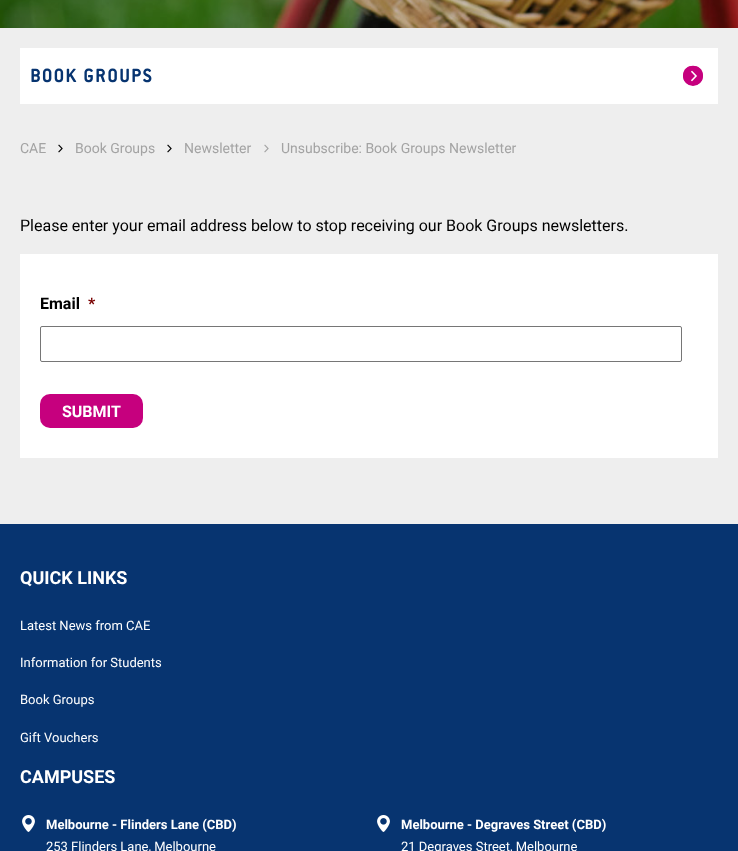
<svg xmlns="http://www.w3.org/2000/svg" width="738" height="851">
	<rect width="100%" height="100%" fill="#EEEEEE" />
	<image x="0" y="0" width="738" height="28" href="assets/img1.png" />
	<rect x="20" y="48" width="698" height="56" fill="#FFFFFF" />
	<text x="30" y="82" font-family="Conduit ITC" font-size="20" font-weight="700" letter-spacing="2" fill="#073470">BOOK GROUPS</text>
	<path d="M703 75.5C703 88.5 683 88.5 683 75.5C683 62.5 703 62.5 703 75.5Z" fill="#C6007E" />
	<circle cx="693" cy="76" r="10" fill="#C6007E" />
	<image x="691" y="70" width="6" height="12" href="assets/img2.png" />
	<text x="20" y="153" font-family="Roboto" font-size="14" fill="#A3A3A3">CAE</text>
	<image x="58" y="144" width="5" height="9" href="assets/img3.png" />
	<text x="75" y="153" font-family="Roboto" font-size="14" fill="#A3A3A3">Book Groups</text>
	<image x="167" y="144" width="5" height="9" href="assets/img3.png" />
	<text x="184" y="153" font-family="Roboto" font-size="14" fill="#A3A3A3">Newsletter</text>
	<image x="264" y="144" width="5" height="9" href="assets/img4.png" />
	<text x="281" y="153" font-family="Roboto" font-size="14" fill="#A3A3A3">Unsubscribe: Book Groups Newsletter</text>
	<text x="20" y="231" font-family="Roboto" font-size="16" fill="#000000">Please enter your email address below to stop receiving our Book Groups newsletters.</text>
	<rect x="20" y="254" width="698" height="204" fill="#FFFFFF" />
	<text x="40" y="309" font-family="Roboto" font-size="16" font-weight="700" fill="#000000">Email</text>
	<text x="88" y="309" font-family="Roboto" font-size="16" font-weight="700" fill="#790000">*</text>
	<rect x="40.5" y="326.5" width="641" height="35" rx="1.5" fill="none" stroke="#767676" />
	<rect x="40" y="394" width="103" height="34" rx="10" fill="#C6007E" />
	<text x="62" y="417" font-family="Roboto" font-size="16" font-weight="700" fill="#FFFFFF">SUBMIT</text>
	<rect x="0" y="524" width="738" height="327" fill="#073470" />
	<text x="20" y="584" font-family="Roboto" font-size="18" font-weight="700" fill="#FFFFFF">QUICK LINKS</text>
	<g font-family="Roboto" font-size="13" fill="#FFFFFF">
		<text x="20" y="630">Latest News from CAE</text>
		<text x="20" y="667">Information for Students</text>
		<text x="20" y="704">Book Groups</text>
		<text x="20" y="742">Gift Vouchers</text>
	</g>
	<text x="20" y="783" font-family="Roboto" font-size="18" font-weight="700" fill="#FFFFFF">CAMPUSES</text>
	<image x="22" y="815" width="13" height="17" href="assets/img5.png" />
	<text x="46" y="829" font-family="Roboto" font-size="13" font-weight="700" fill="#FFFFFF">Melbourne - Flinders Lane (CBD)</text>
	<text x="46" y="851" font-family="Roboto" font-size="13" fill="#FFFFFF">253 Flinders Lane, Melbourne</text>
	<image x="377" y="815" width="13" height="17" href="assets/img5.png" />
	<text x="401" y="829" font-family="Roboto" font-size="13" font-weight="700" fill="#FFFFFF">Melbourne - Degraves Street (CBD)</text>
	<text x="401" y="851" font-family="Roboto" font-size="13" fill="#FFFFFF">21 Degraves Street, Melbourne</text>
</svg>
